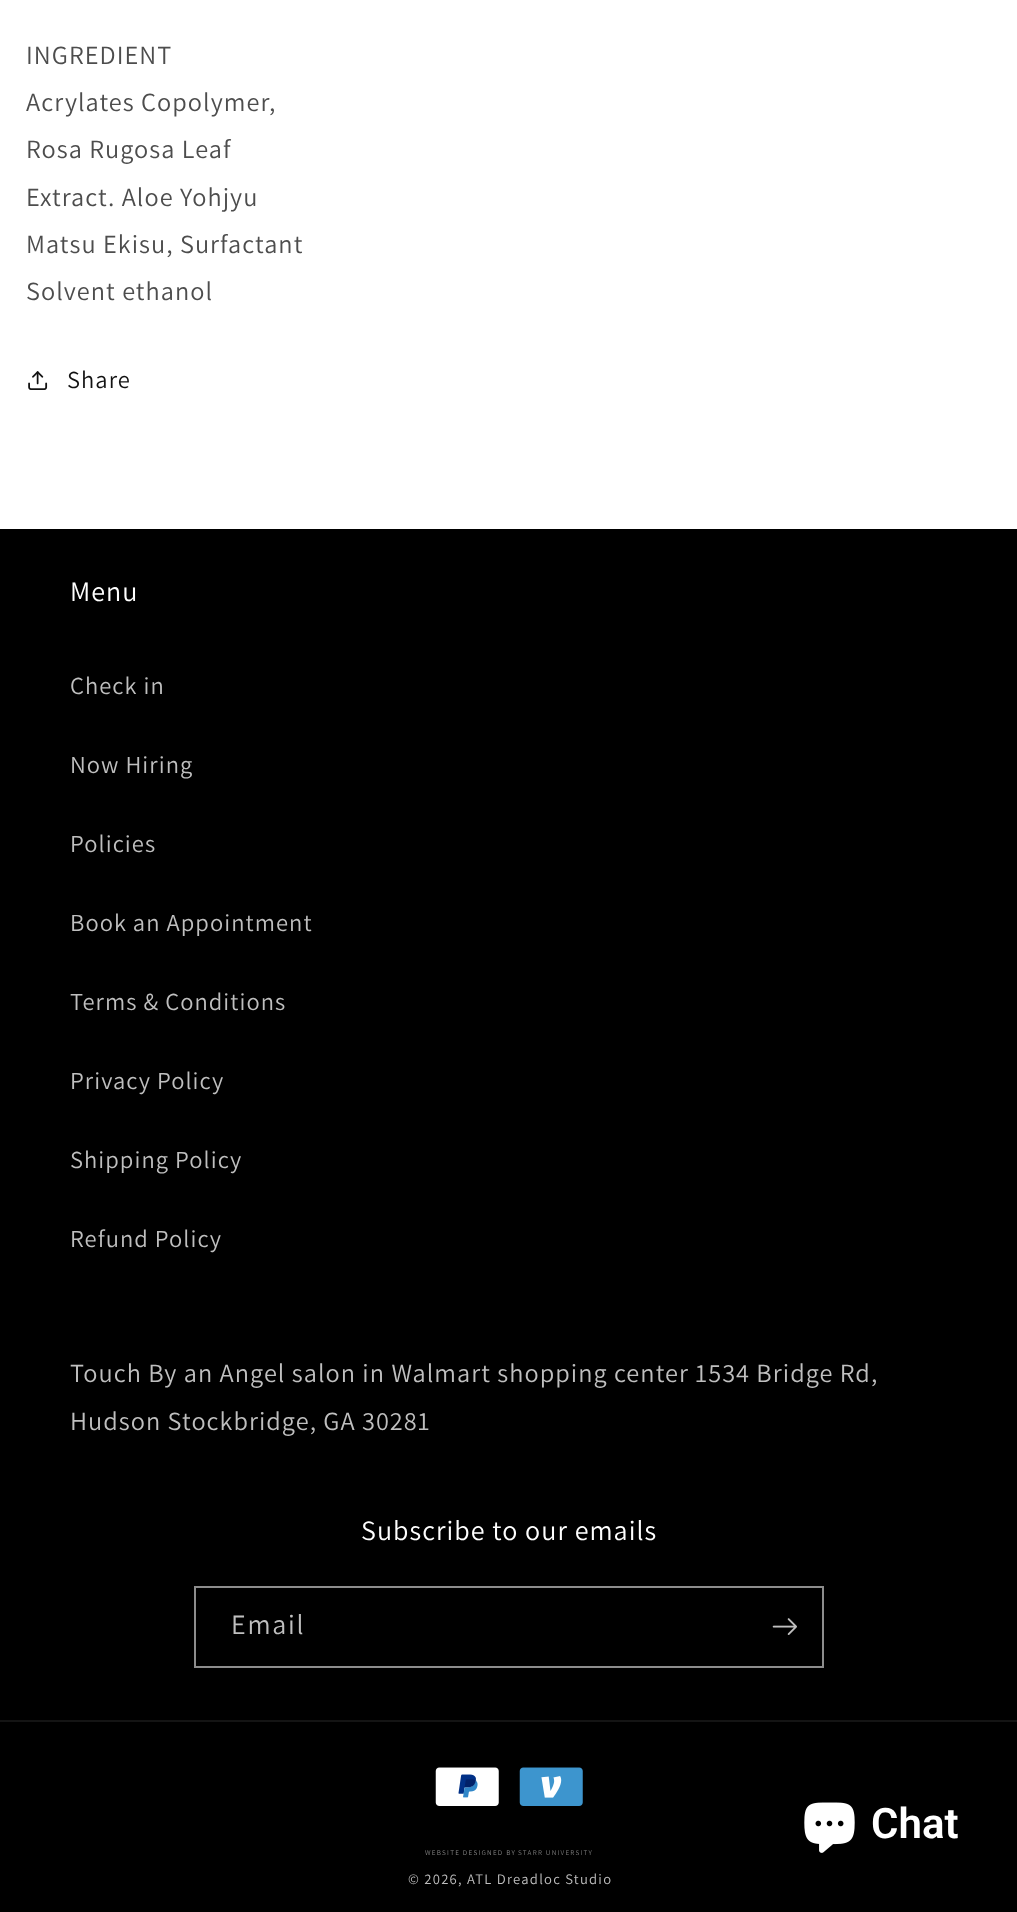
<svg xmlns="http://www.w3.org/2000/svg" width="1017" height="1912">
	<rect width="100%" height="100%" fill="#FFFFFF" />
	<g font-family="Assistant" font-size="26.25" letter-spacing="1.05" fill="#4D4D4D">
		<text x="26" y="64">INGREDIENT</text>
		<text x="26" y="111">Acrylates Copolymer,</text>
		<text x="26" y="158">Rosa Rugosa Leaf</text>
		<text x="26" y="206">Extract. Aloe Yohjyu</text>
		<text x="26" y="253">Matsu Ekisu, Surfactant</text>
		<text x="26" y="300">Solvent ethanol</text>
	</g>
	<image x="28" y="371" width="20" height="19" href="assets/img1.png" />
	<text x="67" y="388" font-family="Assistant" font-size="24.5" letter-spacing="1.05" fill="#121212">Share</text>
	<rect x="0" y="529" width="1017" height="1383" fill="#000000" />
	<text x="70" y="601" font-family="Assistant" font-size="28" letter-spacing="1.05" fill="#FFFFFF">Menu</text>
	<g font-family="Assistant" font-size="24.5" letter-spacing="1.05" fill="#BFBFBF">
		<text x="70" y="694">Check in</text>
		<text x="70" y="773">Now Hiring</text>
		<text x="70" y="852">Policies</text>
		<text x="70" y="931">Book an Appointment</text>
		<text x="70" y="1010">Terms &amp; Conditions</text>
		<text x="70" y="1089">Privacy Policy</text>
		<text x="70" y="1168">Shipping Policy</text>
		<text x="70" y="1247">Refund Policy</text>
	</g>
	<g font-family="Assistant" font-size="26.25" letter-spacing="1.05" fill="#BFBFBF">
		<text x="70" y="1382">Touch By an Angel salon in Walmart shopping center 1534 Bridge Rd,</text>
		<text x="70" y="1430">Hudson Stockbridge, GA 30281</text>
	</g>
	<text x="361" y="1540" font-family="Assistant" font-size="28" letter-spacing="1.05" fill="#FFFFFF">Subscribe to our emails</text>
	<rect x="195" y="1587" width="628" height="80" fill="none" stroke="#8C8C8C" stroke-width="2" />
	<text x="231" y="1634" font-family="Assistant" font-size="28" letter-spacing="1.75" fill="#BFBFBF">Email</text>
	<image x="772" y="1618" width="25" height="17" href="assets/img2.png" />
	<rect x="0" y="1720" width="1017" height="2" fill="#141414" />
	<image x="435" y="1767" width="64" height="39" href="assets/img3.png" />
	<image x="519" y="1767" width="64" height="39" href="assets/img4.png" />
	<text x="425" y="1855" font-family="Assistant" font-size="7.1" letter-spacing="1.25" fill="#868686">WEBSITE DESIGNED BY</text>
	<text x="518" y="1855" font-family="Assistant" font-size="7.1" letter-spacing="1.25" fill="#7D7D7D">STARR UNIVERSITY</text>
	<text x="408" y="1884" font-family="Assistant" font-size="14.6" letter-spacing="1.25" fill="#BFBFBF">© 2026, ATL Dreadloc Studio</text>
	<image x="804" y="1802" width="51" height="51" href="assets/img5.png" />
	<text x="871" y="1838" font-family="Roboto" font-size="42" font-weight="600" fill="#FFFFFF">Chat</text>
</svg>
